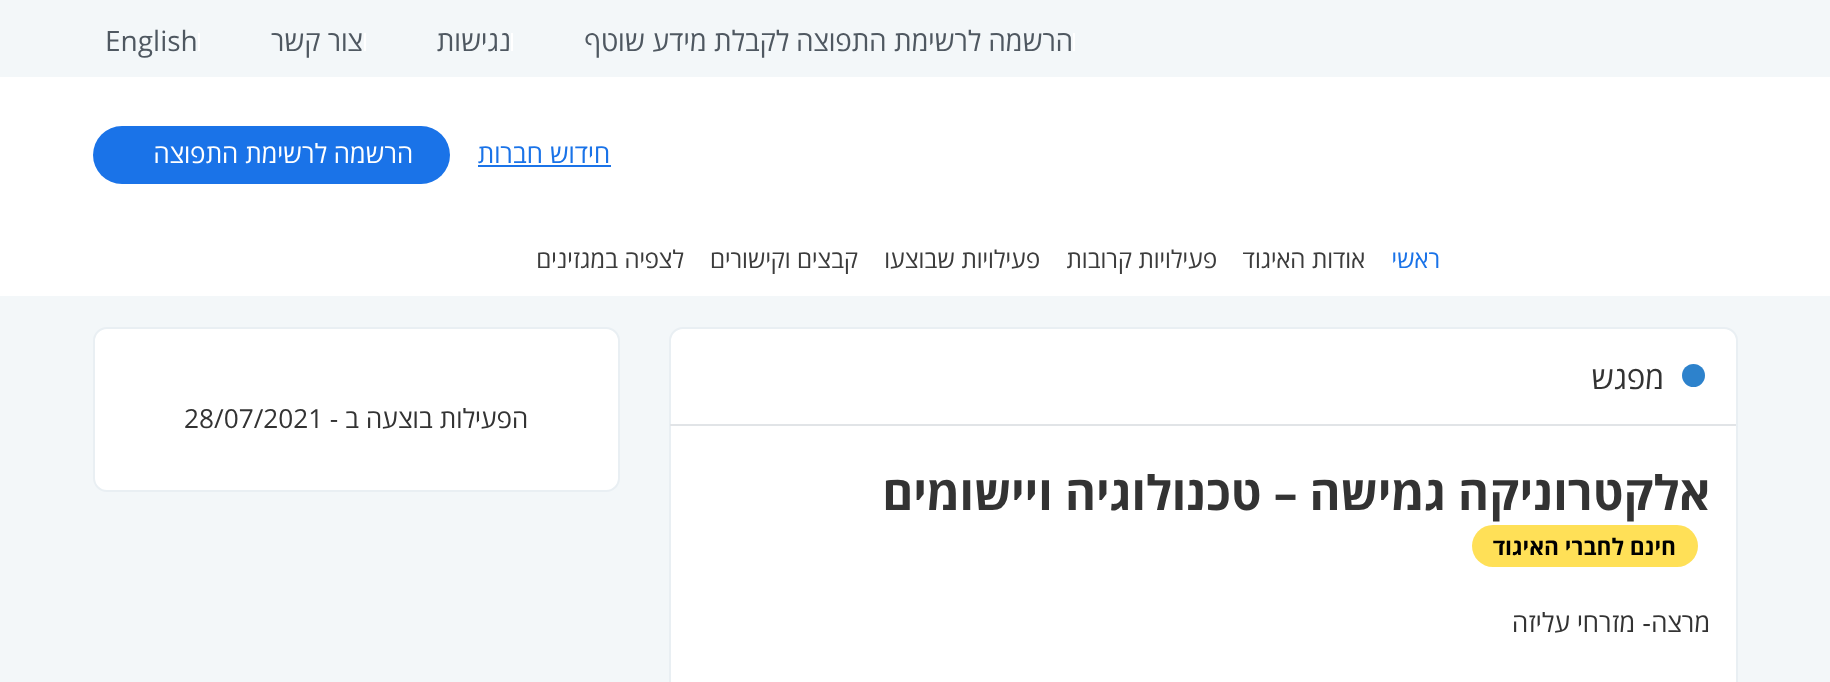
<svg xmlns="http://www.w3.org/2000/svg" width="1830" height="682">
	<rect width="100%" height="100%" fill="#F3F7F9" />
	<rect x="1073" y="33" width="2" height="18" fill="#FFFFFF" />
	<text x="1073" y="51" font-family="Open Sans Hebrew" font-size="28" direction="rtl" fill="#4F5861">הרשמה לרשימת התפוצה לקבלת מידע שוטף</text>
	<rect x="511" y="33" width="2" height="18" fill="#FFFFFF" />
	<text x="511" y="51" font-family="Open Sans Hebrew" font-size="28" direction="rtl" fill="#4F5861">נגישות</text>
	<rect x="364" y="33" width="2" height="18" fill="#FFFFFF" />
	<text x="363" y="51" font-family="Open Sans Hebrew" font-size="28" direction="rtl" fill="#4F5861">צור קשר</text>
	<rect x="198" y="33" width="2" height="18" fill="#FFFFFF" />
	<text x="105" y="51" font-family="Open Sans Hebrew" font-size="28" fill="#4F5861">English</text>
	<rect x="0" y="77" width="1830" height="219" fill="#FFFFFF" />
	<text x="610" y="163" font-family="Open Sans Hebrew" font-size="26.25" direction="rtl" fill="#1A73E8">חידוש חברות</text>
	<rect x="478" y="165" width="133" height="2" fill="#1A73E8" />
	<rect x="93" y="126" width="357" height="58" rx="29" fill="#1A73E8" />
	<text x="413" y="163" font-family="Open Sans Hebrew" font-size="26.25" direction="rtl" fill="#FFFFFF">הרשמה לרשימת התפוצה</text>
	<text x="1440" y="268" font-family="Open Sans Hebrew" font-size="24.5" direction="rtl" fill="#1A73E8">ראשי</text>
	<g font-family="Open Sans Hebrew" font-size="24.5" direction="rtl" fill="#3C3C3C">
		<text x="1365" y="268">אודות האיגוד</text>
		<text x="1217" y="268">פעילויות קרובות</text>
		<text x="1040" y="268">פעילויות שבוצעו</text>
		<text x="858" y="268">קבצים וקישורים</text>
		<text x="684" y="268">לצפיה במגזינים</text>
	</g>
	<rect x="670" y="328" width="1067" height="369" rx="13" fill="#FFFFFF" stroke="#E9EFF3" stroke-width="2" />
	<rect x="670" y="424" width="1066" height="2" fill="#E1E4E7" />
	<circle cx="1693.5" cy="375.5" r="11.5" fill="#2D82CC" />
	<text x="1664" y="389" font-family="Open Sans Hebrew" font-size="31.5" direction="rtl" fill="#333333">מפגש</text>
	<text x="1710" y="510" font-family="Open Sans Hebrew" font-size="47.25" font-weight="700" direction="rtl" fill="#333333">אלקטרוניקה גמישה – טכנולוגיה ויישומים</text>
	<rect x="1472" y="525" width="226" height="42" rx="21" fill="#FFE057" />
	<text x="1676" y="555" font-family="Open Sans Hebrew" font-size="22.75" font-weight="700" direction="rtl" fill="#000000">חינם לחברי האיגוד</text>
	<text x="1710" y="632" font-family="Open Sans Hebrew" font-size="26.25" direction="rtl" fill="#333333">מרצה</text>
	<text x="1651" y="632" font-family="Liberation Sans" font-size="26.25" direction="rtl" fill="#333333">‐</text>
	<text x="1635" y="632" font-family="Open Sans Hebrew" font-size="26.25" direction="rtl" fill="#333333">מזרחי עליזה</text>
	<rect x="94" y="328" width="525" height="163" rx="13" fill="#FFFFFF" stroke="#E9EFF3" stroke-width="2" />
	<text x="528" y="428" font-family="Open Sans Hebrew" font-size="26.25" direction="rtl" fill="#333333">הפעילות בוצעה ב -</text>
	<text x="184" y="428" font-family="Open Sans Hebrew" font-size="26.25" fill="#333333">28/07/2021</text>
</svg>
